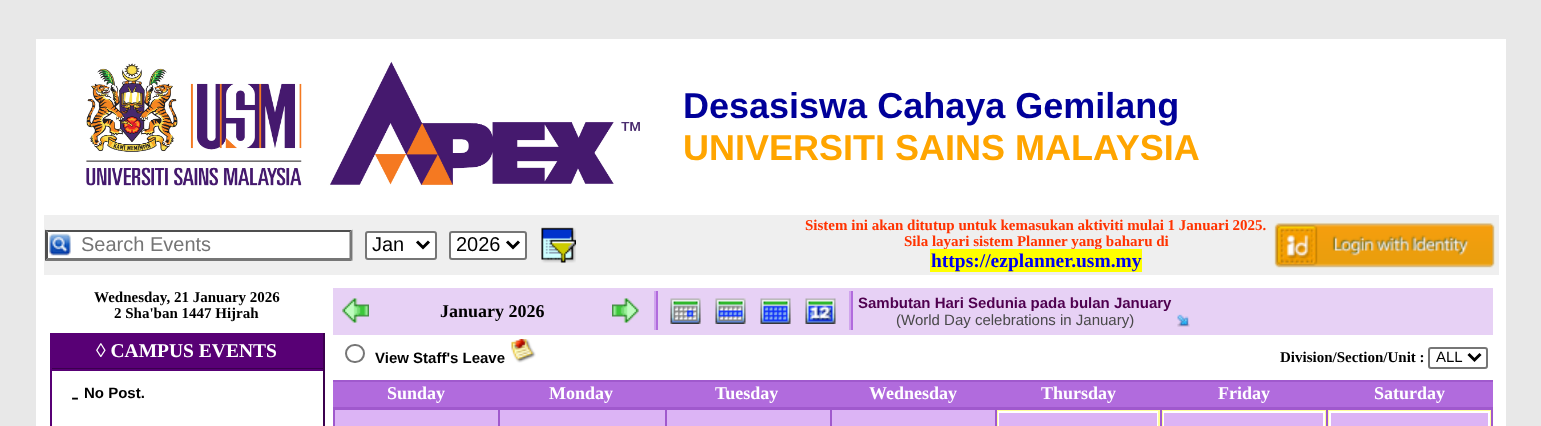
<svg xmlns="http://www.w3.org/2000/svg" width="1541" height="426">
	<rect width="100%" height="100%" fill="#E8E8E8" />
	<rect x="36" y="39" width="1470" height="387" fill="#FFFFFF" />
	<image x="86" y="61" width="554" height="125" href="assets/img1.png" />
	<text x="683" y="118" font-family="Liberation Sans" font-size="36" font-weight="700" fill="#000099">Desasiswa Cahaya Gemilang</text>
	<text x="683" y="160" font-family="Liberation Sans" font-size="36" font-weight="700" fill="#FFA500">UNIVERSITI SAINS MALAYSIA</text>
	<rect x="44" y="215" width="1455" height="60" fill="#EFEFEF" />
	<rect x="45" y="230" width="308" height="31" fill="#FFFFFF" />
	<image x="49" y="233" width="22" height="23" href="assets/img2.png" />
	<path d="M45 230H352L350 232H48Z" fill="#4F4F4F" />
	<path d="M352.5 229.5V261L349.5 258V232.5Z" fill="#767676" />
	<path d="M352 261H45L48 258H350Z" fill="#767676" />
	<path d="M45 261V229.5L48 232.5V258Z" fill="#4F4F4F" />
	<text x="81" y="251" font-family="Liberation Sans" font-size="20" fill="#757575">Search Events</text>
	<rect x="366" y="232" width="70" height="27" rx="2" fill="#FFFFFF" stroke="#767676" stroke-width="2" />
	<path d="M417 241.5L423 247.5L429 241.5" fill="none" stroke="#000000" stroke-width="3" />
	<text x="372" y="251" font-family="Liberation Sans" font-size="20" fill="#000000">Jan</text>
	<rect x="450" y="232" width="76" height="27" rx="2" fill="#FFFFFF" stroke="#767676" stroke-width="2" />
	<path d="M507 241.5L513 247.5L519 241.5" fill="none" stroke="#000000" stroke-width="3" />
	<text x="456" y="251" font-family="Liberation Sans" font-size="20" fill="#000000">2026</text>
	<image x="541" y="227" width="35" height="36" href="assets/img3.png" />
	<g font-family="Liberation Serif" font-size="15" font-weight="700" fill="#FF3300">
		<text x="805" y="230">Sistem ini akan ditutup untuk kemasukan aktiviti mulai 1 Januari 2025.</text>
		<text x="904" y="246">Sila layari sistem Planner yang baharu di</text>
	</g>
	<rect x="930" y="249" width="212" height="23" fill="#FFFF00" />
	<text x="931" y="267" font-family="Liberation Serif" font-size="19.5" font-weight="700" fill="#0000EE">https://ezplanner.usm.my</text>
	<image x="1273" y="222" width="223" height="47" href="assets/img4.png" />
	<g font-family="Liberation Serif" font-size="15" font-weight="700" fill="#000000">
		<text x="94" y="302">Wednesday, 21 January 2026</text>
		<text x="114" y="318">2 Sha'ban 1447 Hijrah</text>
	</g>
	<rect x="52" y="333" width="271" height="35" fill="#580075" />
	<rect x="323" y="333" width="2" height="36" fill="#3B004E" />
	<rect x="50" y="368" width="274" height="1" fill="#3B004E" />
	<rect x="50" y="333" width="2" height="36" fill="#580075" />
	<text x="96" y="357" font-family="Liberation Serif" font-size="19.5" font-weight="700" fill="#FFFFFF">◊ CAMPUS EVENTS</text>
	<rect x="50" y="369" width="274" height="2" fill="#580075" />
	<rect x="323" y="369" width="2" height="57" fill="#3B004E" />
	<rect x="50" y="369" width="2" height="57" fill="#580075" />
	<text x="71" y="405" font-family="Liberation Sans" font-size="24" fill="#000000">-</text>
	<text x="84" y="398" font-family="Liberation Sans" font-size="15" font-weight="700" fill="#000000">No Post.</text>
	<rect x="333" y="288" width="1160" height="47" fill="#E7D1F5" />
	<image x="342" y="298" width="27" height="25" href="assets/img5.png" />
	<text x="440" y="317" font-family="Liberation Serif" font-size="18" font-weight="700" fill="#000000">January 2026</text>
	<image x="612" y="298" width="27" height="25" href="assets/img6.png" />
	<rect x="654" y="291" width="2" height="39" fill="#D0A4ED" />
	<rect x="656" y="291" width="2" height="39" fill="#B16BDD" />
	<image x="670" y="298" width="31" height="26" href="assets/img7.png" />
	<image x="715" y="298" width="31" height="26" href="assets/img8.png" />
	<image x="760" y="298" width="31" height="26" href="assets/img9.png" />
	<image x="805" y="298" width="31" height="26" href="assets/img10.png" />
	<rect x="849" y="291" width="2" height="39" fill="#D0A4ED" />
	<rect x="851" y="291" width="2" height="39" fill="#B16BDD" />
	<text x="858" y="308" font-family="Liberation Sans" font-size="15" font-weight="700" fill="#4F004F">Sambutan Hari Sedunia pada bulan January</text>
	<text x="896" y="325" font-family="Liberation Sans" font-size="15" fill="#494949">(World Day celebrations in January)</text>
	<image x="1177" y="314" width="13" height="13" href="assets/img11.png" />
	<rect x="346" y="345" width="18" height="17" rx="8.5" fill="none" stroke="#767676" stroke-width="2" />
	<text x="375" y="363" font-family="Liberation Sans" font-size="15" font-weight="700" fill="#000000">View Staff's Leave</text>
	<image x="511" y="339" width="25" height="24" href="assets/img12.png" />
	<text x="1280" y="362" font-family="Liberation Serif" font-size="15" font-weight="700" fill="#000000">Division/Section/Unit :</text>
	<rect x="1429" y="348" width="58" height="20" rx="2" fill="none" stroke="#767676" stroke-width="2" />
	<path d="M1468.5 354L1474.5 360L1480.5 354" fill="none" stroke="#000000" stroke-width="3" />
	<text x="1436" y="362" font-family="Liberation Sans" font-size="15" fill="#000000">ALL</text>
	<rect x="333" y="382" width="1160" height="25" fill="#B16BDD" />
	<rect x="333" y="380" width="1160" height="2" fill="#A059CD" />
	<rect x="333" y="407" width="1160" height="1" fill="#A059CD" />
	<g font-family="Liberation Serif" font-size="18" font-weight="700" fill="#FFFFFF">
		<text x="387" y="399">Sunday</text>
		<text x="549" y="399">Monday</text>
		<text x="715" y="399">Tuesday</text>
		<text x="869" y="399">Wednesday</text>
		<text x="1041" y="399">Thursday</text>
		<text x="1218" y="399">Friday</text>
		<text x="1374" y="399">Saturday</text>
	</g>
	<rect x="335" y="410" width="163" height="16" fill="#DCB4F5" />
	<rect x="1326" y="408" width="167" height="2" fill="#A059CD" />
	<rect x="1326" y="408" width="2" height="18" fill="#A059CD" />
	<rect x="1160" y="408" width="168" height="2" fill="#A059CD" />
	<rect x="1160" y="408" width="2" height="18" fill="#A059CD" />
	<rect x="995" y="408" width="166" height="2" fill="#A059CD" />
	<rect x="995" y="408" width="2" height="18" fill="#A059CD" />
	<rect x="830" y="408" width="166" height="2" fill="#A059CD" />
	<rect x="830" y="408" width="2" height="18" fill="#A059CD" />
	<rect x="665" y="408" width="166" height="2" fill="#A059CD" />
	<rect x="665" y="408" width="2" height="18" fill="#A059CD" />
	<rect x="498" y="408" width="168" height="2" fill="#A059CD" />
	<rect x="498" y="408" width="2" height="18" fill="#A059CD" />
	<rect x="333" y="408" width="167" height="2" fill="#A059CD" />
	<rect x="333" y="408" width="2" height="18" fill="#A059CD" />
	<rect x="500" y="410" width="165" height="16" fill="#DCB4F5" />
	<rect x="667" y="410" width="163" height="16" fill="#DCB4F5" />
	<rect x="832" y="410" width="163" height="16" fill="#DCB4F5" />
	<rect x="997" y="410" width="163" height="16" fill="#FFFF99" />
	<rect x="999" y="412" width="158" height="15" fill="none" stroke="#FFFFFF" stroke-width="2" />
	<rect x="999" y="413" width="158" height="13" fill="#DCB4F5" />
	<rect x="1162" y="410" width="164" height="16" fill="#FFFF99" />
	<rect x="1164" y="412" width="160" height="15" fill="none" stroke="#FFFFFF" stroke-width="2" />
	<rect x="1164" y="413" width="159" height="13" fill="#DCB4F5" />
	<rect x="1328" y="410" width="163" height="16" fill="#FFFF99" />
	<rect x="1491" y="408" width="2" height="18" fill="#A059CD" />
	<rect x="1330" y="412" width="159" height="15" fill="none" stroke="#FFFFFF" stroke-width="2" />
	<rect x="1331" y="413" width="157" height="13" fill="#DCB4F5" />
</svg>
